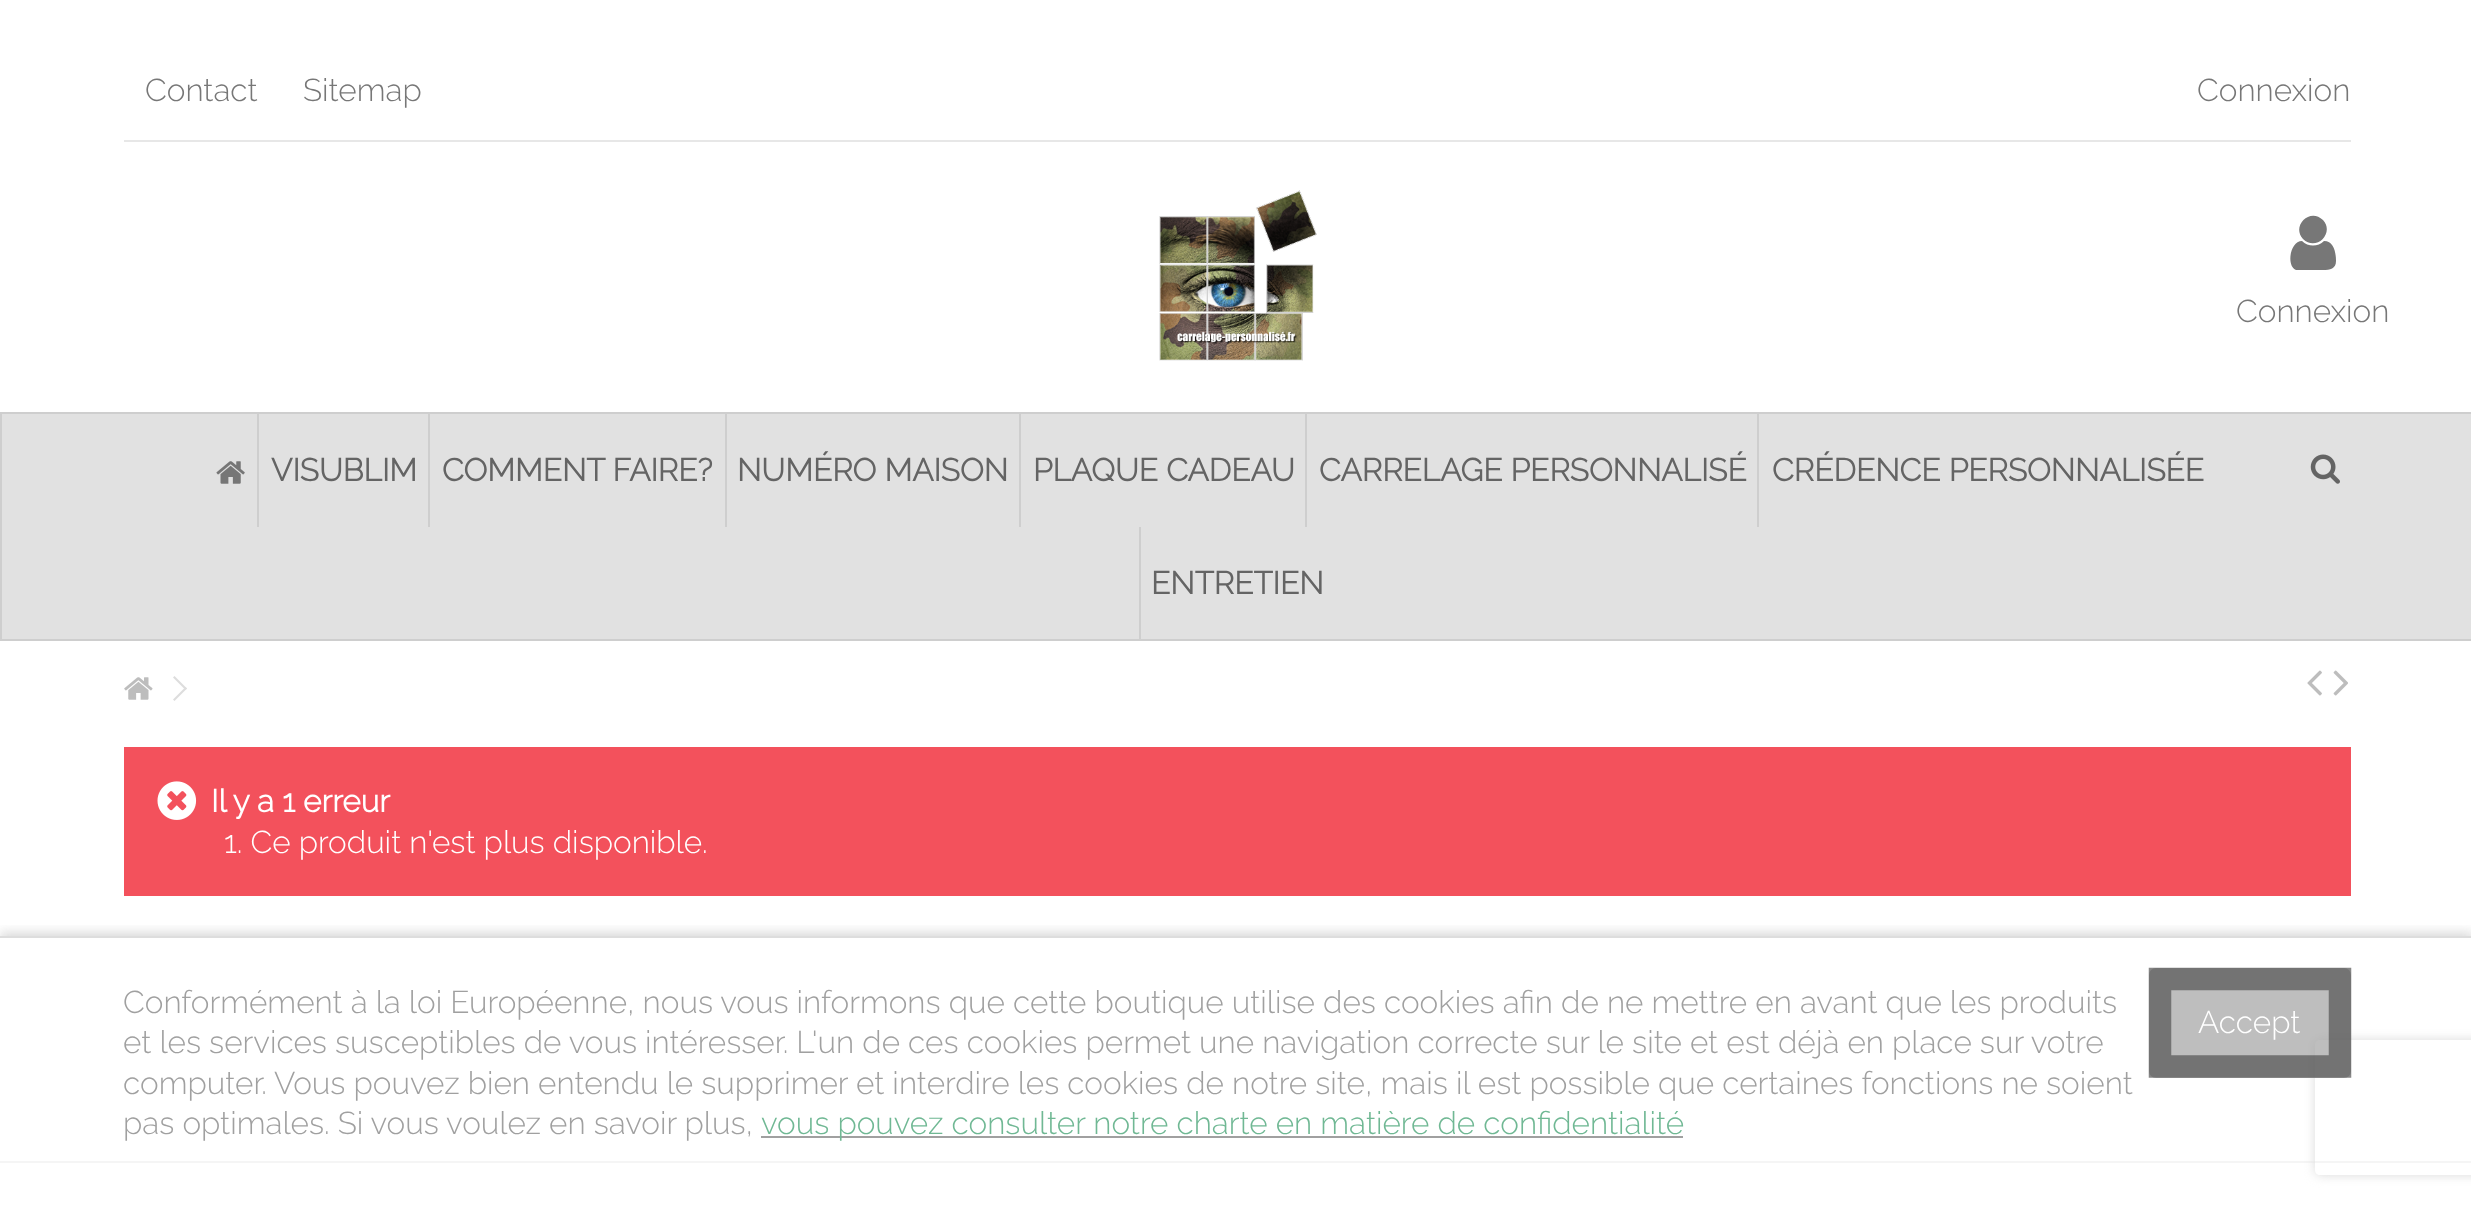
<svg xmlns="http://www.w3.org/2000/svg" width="2471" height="1205">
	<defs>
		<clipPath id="clip1"><rect x="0" y="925" width="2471" height="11" /></clipPath>
		<clipPath id="clip2"><path d="M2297 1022H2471V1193H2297ZM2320 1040H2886C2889 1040 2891 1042 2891 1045V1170C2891 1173 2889 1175 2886 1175H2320C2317 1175 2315 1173 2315 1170V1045C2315 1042 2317 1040 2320 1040Z" clip-rule="evenodd" /></clipPath>
	</defs>
	<rect width="100%" height="100%" fill="#FFFFFF" />
	<rect x="124" y="140" width="2227" height="2" fill="#E7E7E7" />
	<g font-family="Raleway" font-size="31.5" font-weight="300" fill="#777777">
		<text x="145" y="101">Contact</text>
		<text x="303" y="101">Sitemap</text>
		<text x="2197" y="101">Connexion</text>
	</g>
	<image x="1159" y="190" width="158" height="171" href="assets/img1.png" />
	<path d="M2336 261C2336 269 2330 270 2323 270H2296C2286 266 2290 241 2302 241C2308 247 2318 247 2324 241C2334 241 2336 253 2336 261ZM2323 220C2335 233 2316 252 2303 239C2291 226 2310 207 2323 220Z" fill="#777777" />
	<text x="2236" y="322" font-family="Raleway" font-size="31.5" font-weight="300" fill="#777777">Connexion</text>
	<rect x="1" y="413" width="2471" height="227" fill="#E1E1E1" stroke="#CECECE" stroke-width="2" />
	<image x="216" y="461" width="29" height="23" href="assets/img2.png" />
	<rect x="257" y="414" width="2" height="113" fill="#CECECE" />
	<text x="271" y="481" font-family="Raleway" font-size="31.5" font-weight="700" fill="#646464">VISUBLIM</text>
	<rect x="428" y="414" width="2" height="113" fill="#CECECE" />
	<text x="442" y="481" font-family="Raleway" font-size="31.5" font-weight="700" fill="#646464">COMMENT FAIRE?</text>
	<rect x="725" y="414" width="2" height="113" fill="#CECECE" />
	<text x="737" y="481" font-family="Raleway" font-size="31.5" font-weight="700" fill="#646464">NUMÉRO MAISON</text>
	<rect x="1019" y="414" width="2" height="113" fill="#CECECE" />
	<text x="1033" y="481" font-family="Raleway" font-size="31.5" font-weight="700" fill="#646464">PLAQUE CADEAU</text>
	<rect x="1305" y="414" width="2" height="113" fill="#CECECE" />
	<text x="1319" y="481" font-family="Raleway" font-size="31.5" font-weight="700" fill="#646464">CARRELAGE PERSONNALISÉ</text>
	<rect x="1757" y="414" width="2" height="113" fill="#CECECE" />
	<text x="1772" y="481" font-family="Raleway" font-size="31.5" font-weight="700" fill="#646464">CRÉDENCE PERSONNALISÉE</text>
	<rect x="1139" y="527" width="2" height="112" fill="#CECECE" />
	<text x="1151" y="594" font-family="Raleway" font-size="31.5" font-weight="700" fill="#646464">ENTRETIEN</text>
	<image x="2310" y="454" width="30" height="30" href="assets/img3.png" />
	<image x="124" y="677" width="29" height="23" href="assets/img4.png" />
	<path d="M174.5 676L187 688.5L185.5 690L173 677.5Z" fill="#DDDDDD" />
	<path d="M185.5 687L187 688.5L174.5 701L173 699.5Z" fill="#DDDDDD" />
	<image x="2307" y="670" width="15" height="26" href="assets/img5.png" />
	<image x="2333" y="670" width="15" height="26" href="assets/img6.png" />
	<rect x="124" y="747" width="2227" height="149" fill="#F3515C" />
	<image x="157" y="781" width="40" height="39" href="assets/img7.png" />
	<text x="211" y="812" font-family="Raleway" font-size="31.5" font-weight="700" fill="#FFFFFF">Il y a 1 erreur</text>
	<text x="224" y="853" font-family="Raleway" font-size="31.5" font-weight="300" fill="#FFFFFF">1. Ce produit n'est plus disponible.</text>
	<rect x="0" y="1161" width="2471" height="2" fill="#F5F5F5" />
	<g clip-path="url(#clip1)">
		<rect x="0" y="932" width="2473" height="270" fill="#4D4D4D" fill-opacity="0.2" filter="blur(5.5px)" />
	</g>
	<rect x="0" y="936" width="2471" height="2" fill="#DDDDDD" />
	<g font-family="Raleway" font-size="31.5" font-weight="300" fill="#A0A0A0">
		<text x="123" y="1013">Conformément à la loi Européenne, nous vous informons que cette boutique utilise des cookies afin de ne mettre en avant que les produits</text>
		<text x="123" y="1053">et les services susceptibles de vous intéresser. L'un de ces cookies permet une navigation correcte sur le site et est déjà en place sur votre</text>
		<text x="123" y="1094">computer. Vous pouvez bien entendu le supprimer et interdire les cookies de notre site, mais il est possible que certaines fonctions ne soient</text>
		<text x="123" y="1134">pas optimales. Si vous voulez en savoir plus,</text>
	</g>
	<rect x="761" y="1136" width="922" height="2" fill="#A0A0A0" />
	<text x="761" y="1134" font-family="Raleway" font-size="31.5" font-weight="300" fill="#70B894">vous pouvez consulter notre charte en matière de confidentialité</text>
	<g clip-path="url(#clip2)">
		<rect x="2315" y="1040" width="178" height="135" rx="5" fill="#D9D9D9" filter="blur(5.5px)" />
	</g>
	<rect x="2149" y="968" width="202" height="110" rx="7" fill="#A3A3A3" fill-opacity="0.7" />
	<path d="M2160 979H2340V1066.5H2160Z" fill="none" stroke="#525252" stroke-opacity="0.7" stroke-width="22.5" />
	<text x="2198" y="1033" font-family="Raleway" font-size="31.5" font-weight="300" fill="#FFFFFF">Accept</text>
</svg>
